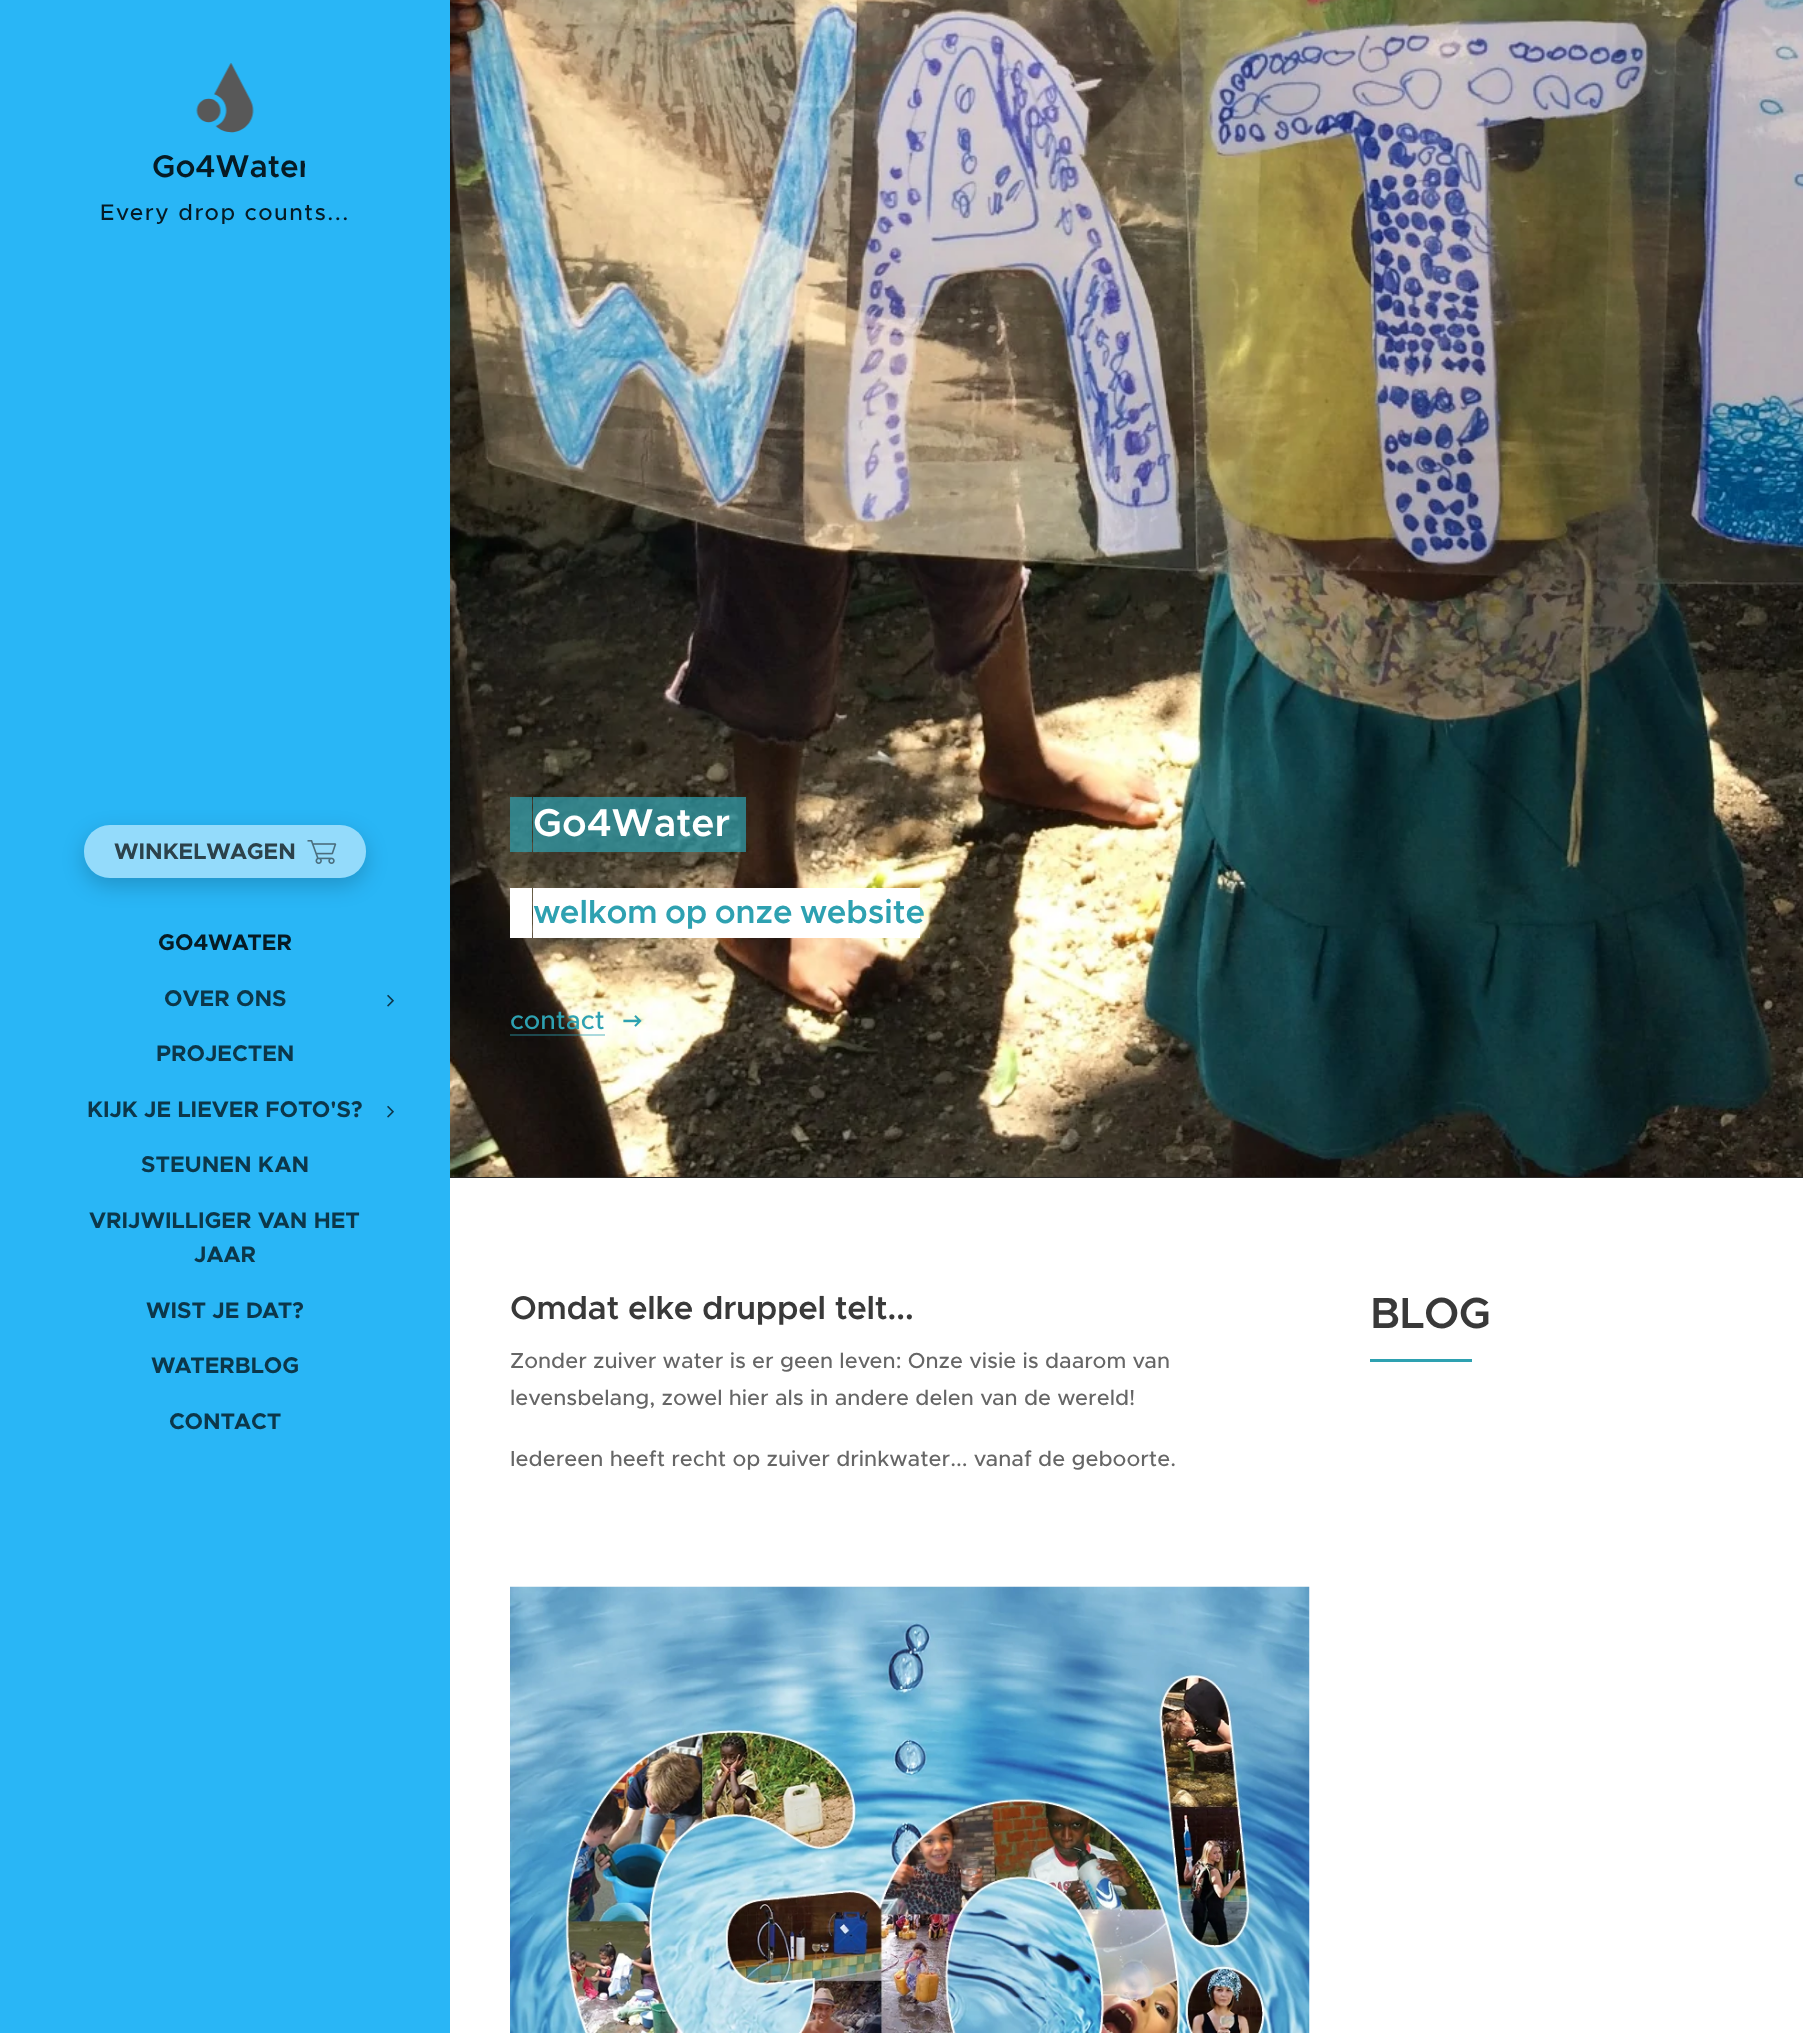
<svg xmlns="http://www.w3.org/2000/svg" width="1803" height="2033">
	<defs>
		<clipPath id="clip1"><rect x="146" y="144" width="159" height="51" /></clipPath>
		<clipPath id="clip2"><path d="M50 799H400V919H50ZM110 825H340C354.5 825 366 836.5 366 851V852C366 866.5 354.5 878 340 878H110C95.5 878 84 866.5 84 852V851C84 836.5 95.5 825 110 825Z" clip-rule="evenodd" /></clipPath>
	</defs>
	<rect width="100%" height="100%" fill="#FFFFFF" />
	<rect x="0" y="0" width="450" height="2033" fill="#29B6F6" />
	<image x="196" y="63" width="58" height="70" href="assets/img1.png" />
	<g clip-path="url(#clip1)">
		<text x="152" y="177" font-family="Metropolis" font-size="31.5" font-weight="600" fill="#061B25">Go4Water</text>
	</g>
	<text x="100" y="220" font-family="Metropolis" font-size="22.75" font-weight="500" letter-spacing="1.5" fill="#061B25">Every drop counts...</text>
	<g clip-path="url(#clip2)">
		<rect x="84" y="833" width="282" height="52" rx="26" fill="#000000" fill-opacity="0.2" filter="blur(11px)" />
	</g>
	<rect x="84" y="825" width="282" height="53" rx="26" fill="#FFFFFF" fill-opacity="0.5" />
	<text x="114" y="859" font-family="Metropolis" font-size="22.75" font-weight="700" fill="#2C424B">WINKELWAGEN</text>
	<image x="307" y="840" width="30" height="24" href="assets/img2.png" />
	<text x="158" y="950" font-family="Metropolis" font-size="22.75" font-weight="700" fill="#061B25">GO4WATER</text>
	<text x="164" y="1006" font-family="Metropolis" font-size="22.75" font-weight="700" fill="#0C374A">OVER ONS</text>
	<image x="387" y="994" width="7" height="13" href="assets/img3.png" />
	<g font-family="Metropolis" font-size="22.75" font-weight="700" fill="#0C374A">
		<text x="156" y="1061">PROJECTEN</text>
		<text x="87" y="1117">KIJK JE LIEVER FOTO'S?</text>
	</g>
	<image x="387" y="1105" width="7" height="13" href="assets/img3.png" />
	<g font-family="Metropolis" font-size="22.75" font-weight="700" fill="#0C374A">
		<text x="141" y="1172">STEUNEN KAN</text>
		<text x="89" y="1228">VRIJWILLIGER VAN HET</text>
		<text x="194" y="1262">JAAR</text>
		<text x="146" y="1318">WIST JE DAT?</text>
		<text x="151" y="1373">WATERBLOG</text>
		<text x="169" y="1429">CONTACT</text>
	</g>
	<rect x="450" y="1177" width="1353" height="1" fill="#272727" />
	<image x="450" y="0" width="1353" height="1177" href="assets/img4.png" />
	<rect x="723" y="797" width="23" height="55" fill="#2EA1B1" fill-opacity="0.7" />
	<rect x="533" y="797" width="190" height="55" fill="#2EA1B1" fill-opacity="0.7" />
	<text x="533" y="836" font-family="Metropolis" font-size="39" font-weight="600" fill="#FFFFFF">Go4Water</text>
	<rect x="510" y="797" width="22" height="55" fill="#2EA1B1" fill-opacity="0.7" />
	<path d="M555 938H920V888H897V938Z" fill="#FFFFFF" />
	<rect x="533" y="888" width="364" height="50" fill="#FFFFFF" />
	<text x="533" y="923" word-spacing="-2" font-family="Metropolis" font-size="33" font-weight="600" fill="#2EA1B1">welkom op onze website</text>
	<path d="M510 888V938H875H532V888Z" fill="#FFFFFF" />
	<text x="510" y="1029" font-family="Metropolis" font-size="26" font-weight="500" fill="#2EA1B1">contact</text>
	<rect x="510" y="1034" width="95" height="2" fill="#2EA1B1" fill-opacity="0.4" />
	<image x="623" y="1015" width="19" height="12" href="assets/img5.png" />
	<text x="510" y="1319" font-family="Metropolis" font-size="33" font-weight="600" letter-spacing="-0.3" fill="#393939">Omdat elke druppel telt...</text>
	<g font-family="Metropolis" font-size="21.9" font-weight="500" fill="#666666">
		<text x="510" y="1368">Zonder zuiver water is er geen leven: Onze visie is daarom van</text>
		<text x="510" y="1405">levensbelang, zowel hier als in andere delen van de wereld!</text>
		<text x="510" y="1466">Iedereen heeft recht op zuiver drinkwater... vanaf de geboorte.</text>
	</g>
	<image x="510" y="1586" width="800" height="447" href="assets/img6.png" />
	<text x="1370" y="1328" font-family="Metropolis" font-size="43.5" font-weight="600" letter-spacing="-0.5" fill="#393939">BLOG</text>
	<rect x="1370" y="1359" width="102" height="3" fill="#2EA1B1" />
</svg>
